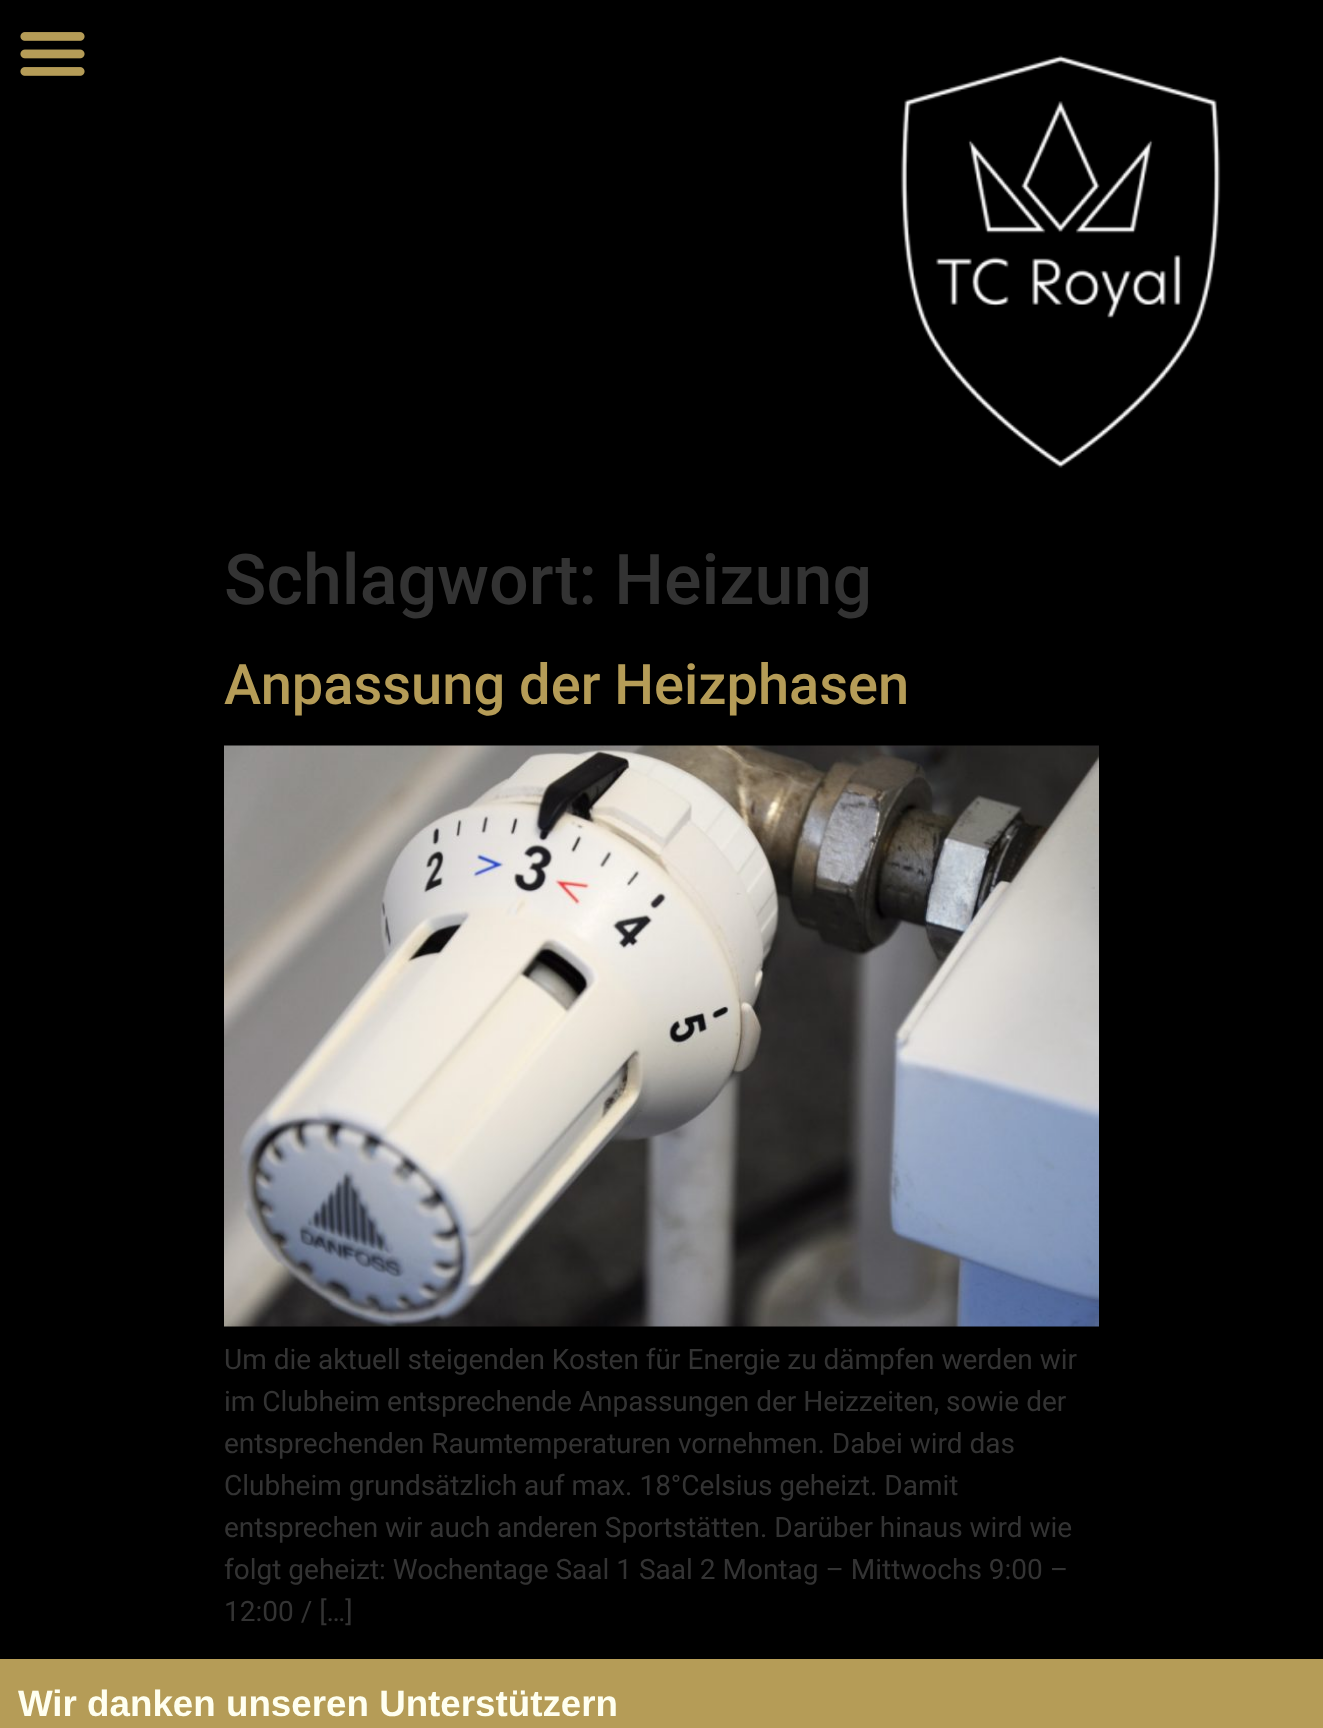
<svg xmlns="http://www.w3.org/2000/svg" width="1323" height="1728">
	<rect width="100%" height="100%" fill="#000000" />
	<image x="20" y="32" width="65" height="44" href="assets/img1.png" />
	<image x="900" y="55" width="321" height="413" href="assets/img2.png" />
	<text x="224" y="604" font-family="Roboto" font-size="70" font-weight="500" fill="#333333">Schlagwort: Heizung</text>
	<text x="224" y="704" font-family="Roboto" font-size="56" font-weight="500" fill="#B59C57">Anpassung der Heizphasen</text>
	<image x="224" y="745" width="875" height="582" href="assets/img3.png" />
	<g font-family="Roboto" font-size="28" fill="#333333">
		<text x="224" y="1369">Um die aktuell steigenden Kosten für Energie zu dämpfen werden wir</text>
		<text x="224" y="1411">im Clubheim entsprechende Anpassungen der Heizzeiten, sowie der</text>
		<text x="224" y="1453">entsprechenden Raumtemperaturen vornehmen. Dabei wird das</text>
		<text x="224" y="1495">Clubheim grundsätzlich auf max. 18°Celsius geheizt. Damit</text>
		<text x="224" y="1537">entsprechen wir auch anderen Sportstätten. Darüber hinaus wird wie</text>
		<text x="224" y="1579">folgt geheizt: Wochentage Saal 1 Saal 2 Montag – Mittwochs 9:00 –</text>
		<text x="224" y="1621">12:00 / […]</text>
	</g>
	<rect x="0" y="1659" width="1323" height="69" fill="#B59C57" />
	<text x="18" y="1716" font-family="Liberation Sans" font-size="36.75" font-weight="700" fill="#FFFFF0">Wir danken unseren Unterstützern</text>
</svg>
